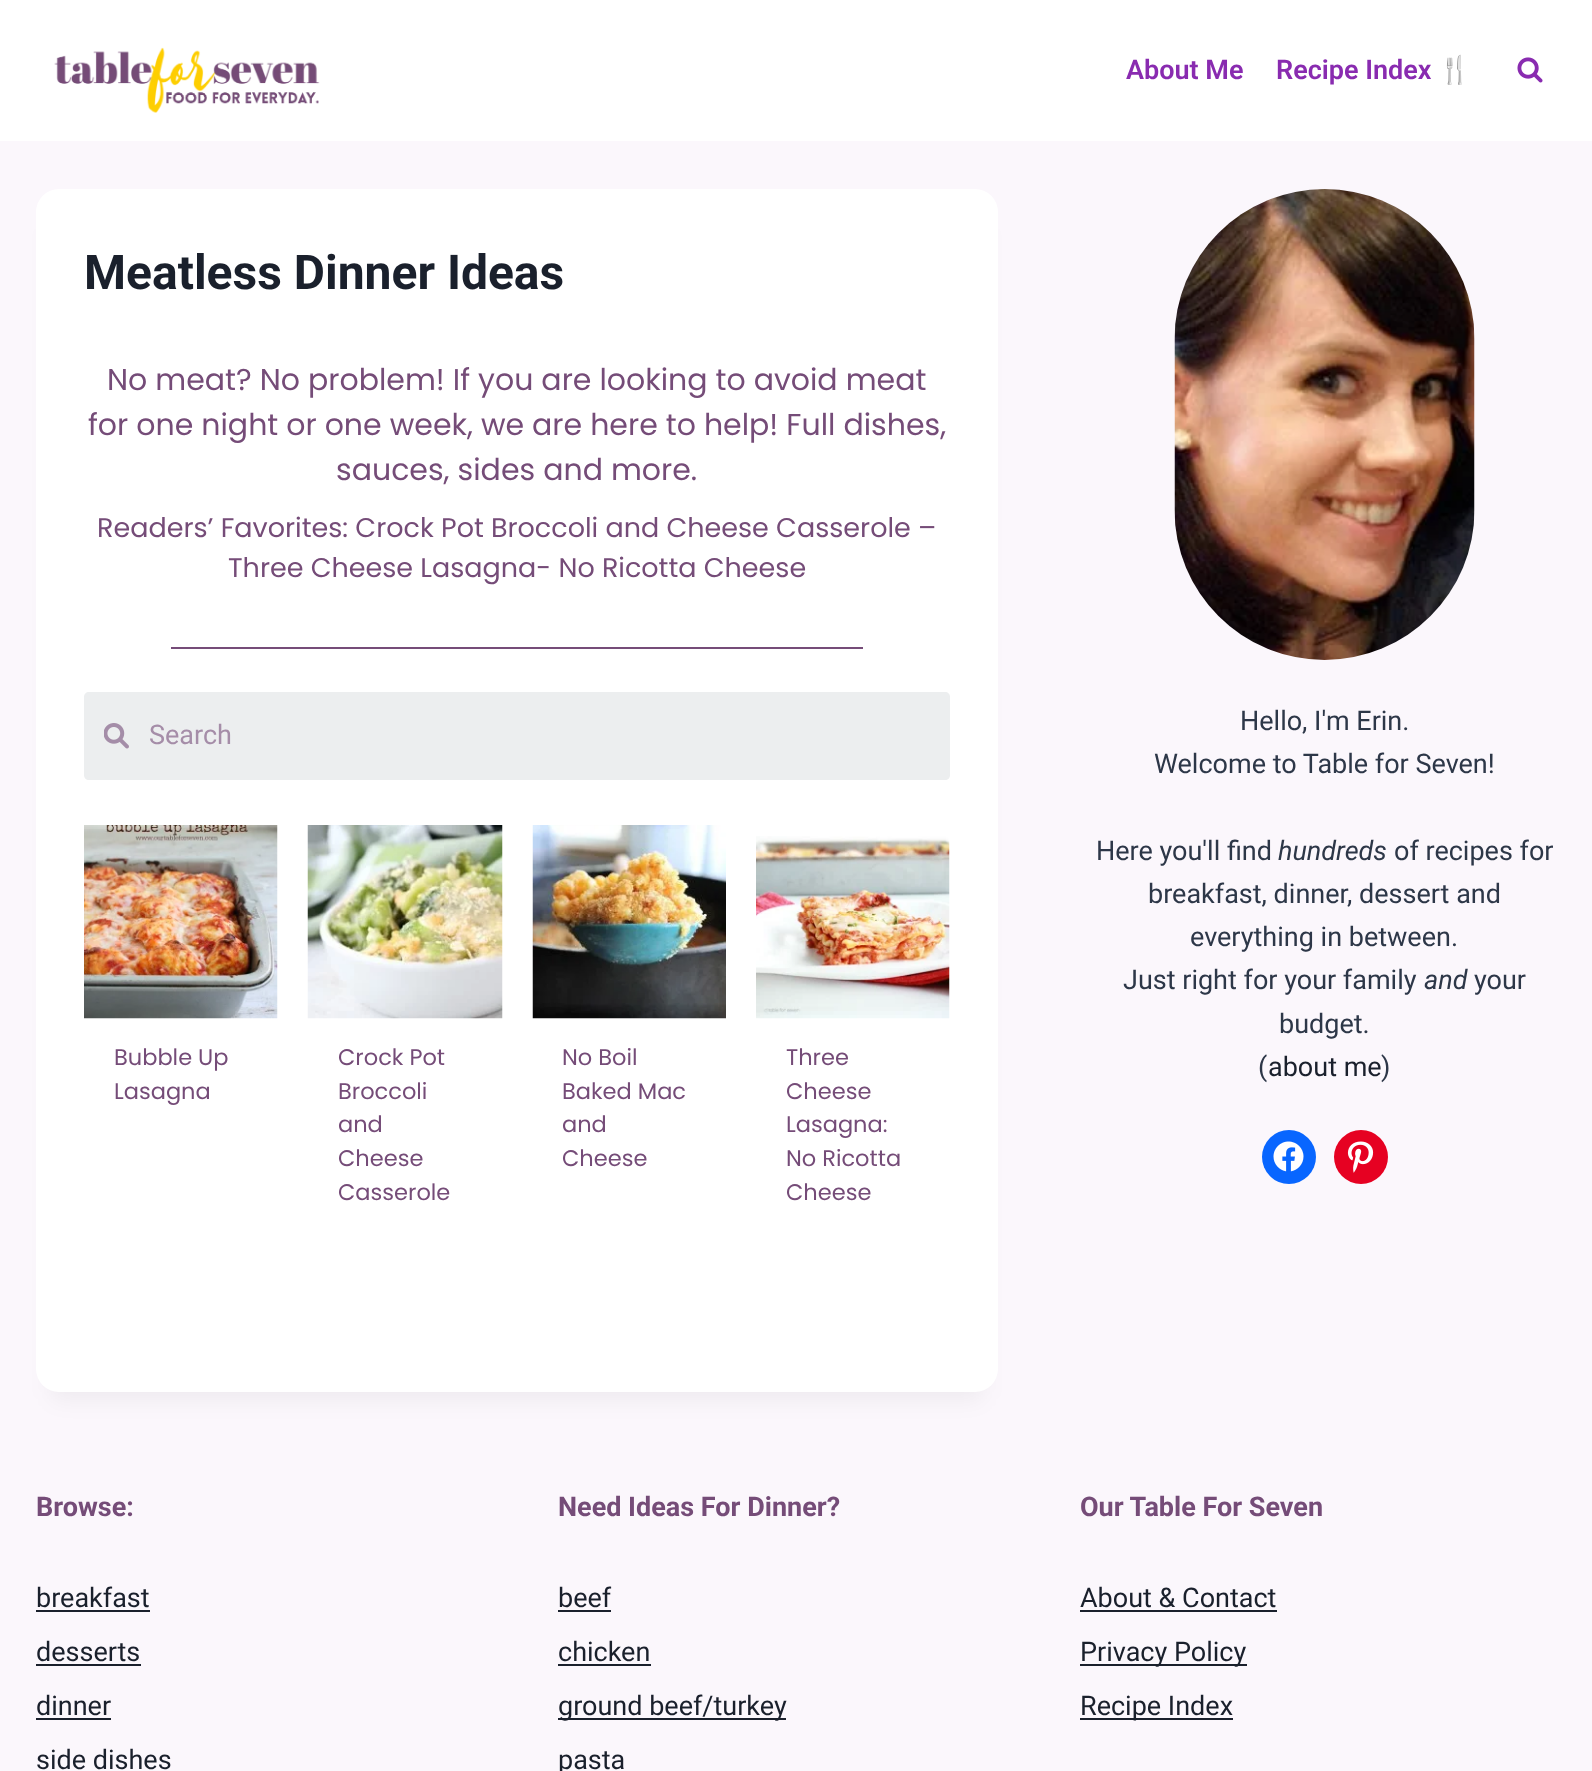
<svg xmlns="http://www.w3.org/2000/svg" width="1592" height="1771">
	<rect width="100%" height="100%" fill="#FBF7FC" />
	<rect x="0" y="0" width="1592" height="141" fill="#FFFFFF" />
	<image x="54" y="47" width="266" height="66" href="assets/img1.png" />
	<g font-family="Roboto" font-size="27" font-weight="600" fill="#892BB0">
		<text x="1126" y="79">About Me</text>
		<text x="1276" y="79">Recipe Index</text>
	</g>
	<text x="1438" y="79" font-family="Noto Color Emoji" font-size="27" font-weight="700" fill="#892BB0">🍴</text>
	<image x="1517" y="57" width="26" height="26" href="assets/img2.png" />
	<rect x="51" y="227" width="932" height="1173" rx="8" fill="#000000" fill-opacity="0.05" filter="blur(11px)" />
	<rect x="36" y="189" width="962" height="1203" rx="23" fill="#FFFFFF" />
	<text x="84" y="289" font-family="Roboto" font-size="48" font-weight="700" fill="#1A202C">Meatless Dinner Ideas</text>
	<g font-family="Poppins" font-size="30" fill="#754C78">
		<text x="107" y="390">No meat? No problem! If you are looking to avoid meat</text>
		<text x="88" y="435">for one night or one week, we are here to help! Full dishes,</text>
		<text x="336" y="480">sauces, sides and more.</text>
	</g>
	<g font-family="Poppins" font-size="27" fill="#754C78">
		<text x="97" y="537">Readers’ Favorites: Crock Pot Broccoli and Cheese Casserole –</text>
		<text x="228" y="577">Three Cheese Lasagna- No Ricotta Cheese</text>
	</g>
	<rect x="171" y="647" width="692" height="2" fill="#754C78" />
	<path d="M89 692H129V780H89C86 780 84 778 84 775V697C84 694 86 692 89 692Z" fill="#ECEEEF" />
	<image x="104" y="723" width="25" height="26" href="assets/img3.png" />
	<path d="M129 692H945C948 692 950 694 950 697V775C950 778 948 780 945 780H129Z" fill="#ECEEEF" />
	<text x="149" y="744" font-family="Roboto" font-size="27" fill="#A58DA8">Search</text>
	<image x="84" y="825" width="194" height="194" href="assets/img4.png" />
	<g font-family="Poppins" font-size="22.5" fill="#754C78">
		<text x="114" y="1065">Bubble Up</text>
		<text x="114" y="1099">Lasagna</text>
	</g>
	<image x="307" y="825" width="196" height="194" href="assets/img5.png" />
	<g font-family="Poppins" font-size="22.5" fill="#754C78">
		<text x="338" y="1065">Crock Pot</text>
		<text x="338" y="1099">Broccoli</text>
		<text x="338" y="1132">and</text>
		<text x="338" y="1166">Cheese</text>
		<text x="338" y="1200">Casserole</text>
	</g>
	<image x="532" y="825" width="194" height="194" href="assets/img6.png" />
	<g font-family="Poppins" font-size="22.5" fill="#754C78">
		<text x="562" y="1065">No Boil</text>
		<text x="562" y="1099">Baked Mac</text>
		<text x="562" y="1132">and</text>
		<text x="562" y="1166">Cheese</text>
	</g>
	<image x="756" y="836" width="194" height="183" href="assets/img7.png" />
	<g font-family="Poppins" font-size="22.5" fill="#754C78">
		<text x="786" y="1065">Three</text>
		<text x="786" y="1099">Cheese</text>
		<text x="786" y="1132">Lasagna:</text>
		<text x="786" y="1166">No Ricotta</text>
		<text x="786" y="1200">Cheese</text>
	</g>
	<image x="1174" y="189" width="301" height="471" href="assets/img8.png" />
	<g font-family="Roboto" font-size="27" fill="#2D3748">
		<text x="1240" y="730">Hello, I'm Erin.</text>
		<text x="1154" y="773">Welcome to Table for Seven!</text>
		<text x="1096" y="860">Here you'll find</text>
	</g>
	<text x="1278" y="860" font-family="Roboto" font-size="27" font-style="italic" fill="#2D3748">hundreds</text>
	<g font-family="Roboto" font-size="27" fill="#2D3748">
		<text x="1394" y="860">of recipes for</text>
		<text x="1148" y="903">breakfast, dinner, dessert and</text>
		<text x="1190" y="946">everything in between.</text>
		<text x="1123" y="989">Just right for your family</text>
	</g>
	<text x="1424" y="989" font-family="Roboto" font-size="27" font-style="italic" fill="#2D3748">and</text>
	<g font-family="Roboto" font-size="27" fill="#2D3748">
		<text x="1474" y="989">your</text>
		<text x="1279" y="1033">budget.</text>
		<text x="1258" y="1076">(</text>
	</g>
	<text x="1268" y="1076" font-family="Roboto" font-size="27" fill="#1A202C">about me</text>
	<text x="1381" y="1076" font-family="Roboto" font-size="27" fill="#2D3748">)</text>
	<circle cx="1289" cy="1157" r="27" fill="#0866FF" />
	<image x="1273" y="1141" width="31" height="31" href="assets/img9.png" />
	<circle cx="1361" cy="1157" r="27" fill="#E60122" />
	<image x="1347" y="1141" width="27" height="32" href="assets/img10.png" />
	<text x="36" y="1516" font-family="Roboto" font-size="27" font-weight="700" fill="#754C78">Browse:</text>
	<text x="36" y="1607" font-family="Roboto" font-size="27" fill="#1A202C">breakfast</text>
	<rect x="36" y="1610" width="114" height="2" fill="#1A202C" />
	<text x="36" y="1661" font-family="Roboto" font-size="27" fill="#1A202C">desserts</text>
	<rect x="36" y="1664" width="105" height="2" fill="#1A202C" />
	<text x="36" y="1715" font-family="Roboto" font-size="27" fill="#1A202C">dinner</text>
	<rect x="36" y="1718" width="75" height="2" fill="#1A202C" />
	<text x="36" y="1769" font-family="Roboto" font-size="27" fill="#1A202C">side dishes</text>
	<text x="558" y="1516" font-family="Roboto" font-size="27" font-weight="700" fill="#754C78">Need Ideas For Dinner?</text>
	<text x="558" y="1607" font-family="Roboto" font-size="27" fill="#1A202C">beef</text>
	<rect x="558" y="1610" width="53" height="2" fill="#1A202C" />
	<text x="558" y="1661" font-family="Roboto" font-size="27" fill="#1A202C">chicken</text>
	<rect x="558" y="1664" width="93" height="2" fill="#1A202C" />
	<rect x="558" y="1718" width="228" height="2" fill="#1A202C" />
	<g font-family="Roboto" font-size="27" fill="#1A202C">
		<text x="558" y="1715">ground beef/turkey</text>
		<text x="558" y="1769">pasta</text>
	</g>
	<text x="1080" y="1516" font-family="Roboto" font-size="27" font-weight="700" fill="#754C78">Our Table For Seven</text>
	<text x="1080" y="1607" font-family="Roboto" font-size="27" fill="#1A202C">About &amp; Contact</text>
	<rect x="1080" y="1610" width="197" height="2" fill="#1A202C" />
	<rect x="1080" y="1664" width="167" height="2" fill="#1A202C" />
	<text x="1080" y="1661" font-family="Roboto" font-size="27" fill="#1A202C">Privacy Policy</text>
	<rect x="1080" y="1718" width="153" height="2" fill="#1A202C" />
	<text x="1080" y="1715" font-family="Roboto" font-size="27" fill="#1A202C">Recipe Index</text>
</svg>
